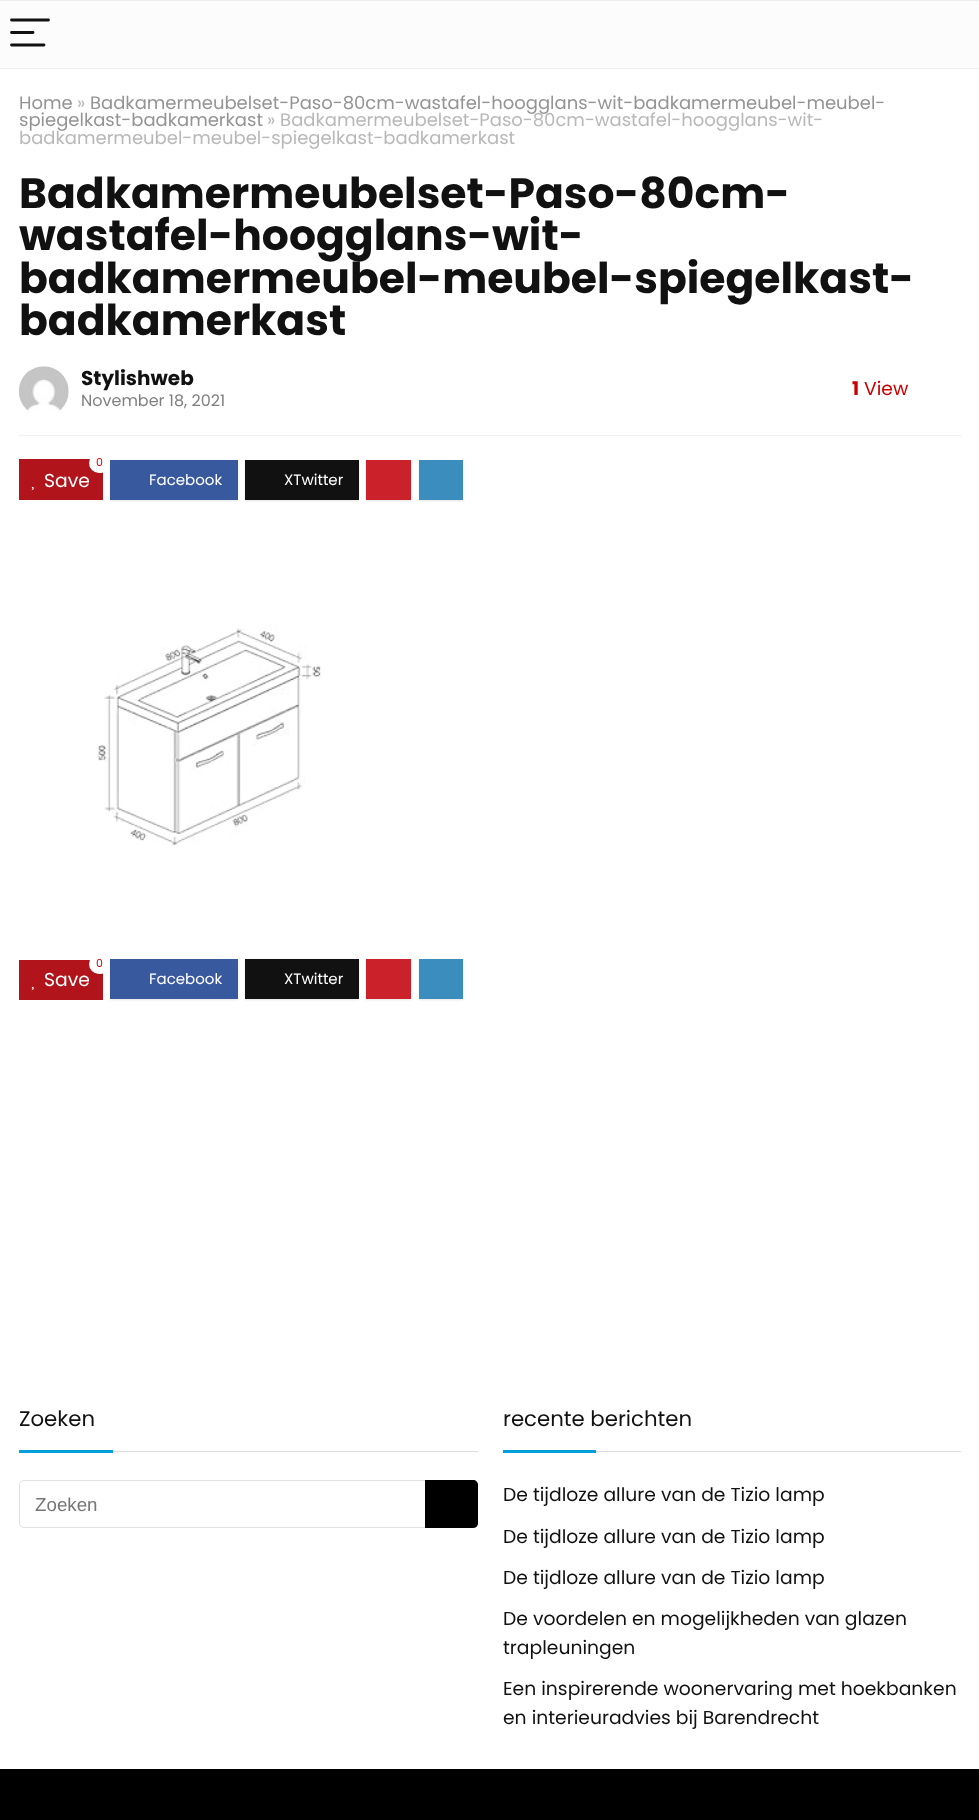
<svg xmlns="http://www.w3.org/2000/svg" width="979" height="1820">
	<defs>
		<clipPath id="clip1"><rect x="19" y="455" width="942" height="53" /></clipPath>
	</defs>
	<rect width="100%" height="100%" fill="#FFFFFF" />
	<rect x="0" y="1" width="979" height="67" fill="#FCFCFC" />
	<rect x="0" y="0" width="979" height="1" fill="#EEEEEE" />
	<rect x="0" y="68" width="979" height="1" fill="#EEEEEE" />
	<path d="M11.5 20H48.5M11.5 32.5H33M11.5 45H44" fill="none" stroke="#111111" stroke-width="2.8" stroke-linecap="round" />
	<text x="19" y="109" font-family="Poppins" font-size="18" fill="#949494">Home</text>
	<text x="77" y="109" font-family="Poppins" font-size="18" fill="#B8B8B8">»</text>
	<g font-family="Poppins" font-size="18" fill="#949494">
		<text x="90" y="109">Badkamermeubelset-Paso-80cm-wastafel-hoogglans-wit-badkamermeubel-meubel-</text>
		<text x="19" y="126">spiegelkast-badkamerkast</text>
	</g>
	<g font-family="Poppins" font-size="18" fill="#B8B8B8">
		<text x="267" y="126">» Badkamermeubelset-Paso-80cm-wastafel-hoogglans-wit-</text>
		<text x="19" y="144">badkamermeubel-meubel-spiegelkast-badkamerkast</text>
	</g>
	<g font-family="Poppins" font-size="42.5" font-weight="700" fill="#111111">
		<text x="19" y="208">Badkamermeubelset-Paso-80cm-</text>
		<text x="19" y="250">wastafel-hoogglans-wit-</text>
		<text x="19" y="293">badkamermeubel-meubel-spiegelkast-</text>
		<text x="19" y="335">badkamerkast</text>
	</g>
	<rect x="19" y="435" width="942" height="1" fill="#F0F0F0" />
	<image x="18" y="366" width="51" height="45" href="assets/img1.png" />
	<text x="81" y="385" font-family="Poppins" font-size="20" font-weight="700" fill="#111111">Stylishweb</text>
	<text x="81" y="406" font-family="Poppins" font-size="16" fill="#808080">November 18, 2021</text>
	<text x="852" y="395" font-family="Poppins" font-size="18.75" font-weight="700" fill="#CC0000">1</text>
	<text x="864" y="395" font-family="Poppins" font-size="18.75" fill="#CC0000">View</text>
	<rect x="19" y="459" width="84" height="41" fill="#B1141A" />
	<g clip-path="url(#clip1)">
		<rect x="89" y="453" width="22" height="20" rx="10" fill="#FFFFFF" />
	</g>
	<text x="96" y="466" font-family="Poppins" font-size="11" fill="#CC0000">0</text>
	<text x="44" y="487" font-family="Poppins" font-size="18.75" fill="#FFFFFF">Save</text>
	<image x="31" y="486" width="3" height="5" href="assets/img2.png" />
	<rect x="110" y="461" width="128" height="40" fill="#E4E4E4" filter="blur(1px)" />
	<rect x="110" y="460" width="128" height="40" fill="#39599F" />
	<text x="149" y="485" font-family="Poppins" font-size="15" fill="#FFFFFF">Facebook</text>
	<rect x="245" y="461" width="114" height="40" fill="#E4E4E4" filter="blur(1px)" />
	<rect x="245" y="460" width="114" height="40" fill="#111111" />
	<text x="284" y="485" font-family="Poppins" font-size="15" fill="#FFFFFF">XTwitter</text>
	<rect x="366" y="461" width="45" height="40" fill="#E4E4E4" filter="blur(1px)" />
	<rect x="366" y="460" width="45" height="40" fill="#CA212A" />
	<rect x="419" y="461" width="44" height="40" fill="#E4E4E4" filter="blur(1px)" />
	<rect x="419" y="460" width="44" height="40" fill="#3B8DBD" />
	<image x="97" y="625" width="224" height="221" href="assets/img3.png" />
	<rect x="19" y="960" width="84" height="40" fill="#B1141A" />
	<rect x="89" y="954" width="22" height="20" rx="10" fill="#FFFFFF" />
	<text x="96" y="967" font-family="Poppins" font-size="11" fill="#CC0000">0</text>
	<text x="44" y="986" font-family="Poppins" font-size="18.75" fill="#FFFFFF">Save</text>
	<image x="31" y="986" width="3" height="5" href="assets/img2.png" />
	<rect x="110" y="960" width="128" height="40" fill="#E4E4E4" filter="blur(1px)" />
	<rect x="110" y="959" width="128" height="40" fill="#39599F" />
	<text x="149" y="984" font-family="Poppins" font-size="15" fill="#FFFFFF">Facebook</text>
	<rect x="245" y="960" width="114" height="40" fill="#E4E4E4" filter="blur(1px)" />
	<rect x="245" y="959" width="114" height="40" fill="#111111" />
	<text x="284" y="984" font-family="Poppins" font-size="15" fill="#FFFFFF">XTwitter</text>
	<rect x="366" y="960" width="45" height="40" fill="#E4E4E4" filter="blur(1px)" />
	<rect x="366" y="959" width="45" height="40" fill="#CA212A" />
	<rect x="419" y="960" width="44" height="40" fill="#E4E4E4" filter="blur(1px)" />
	<rect x="419" y="959" width="44" height="40" fill="#3B8DBD" />
	<rect x="113" y="1451" width="365" height="1" fill="#DDDDDD" />
	<text x="19" y="1426" font-family="Poppins" font-size="21.25" fill="#111111">Zoeken</text>
	<rect x="19" y="1450" width="94" height="3" fill="#029FDD" />
	<rect x="19.5" y="1480.5" width="458" height="47" rx="4.5" fill="none" stroke="#E1E1E1" />
	<text x="35" y="1511" font-family="Liberation Sans" font-size="18.75" fill="#757575">Zoeken</text>
	<path d="M425 1480H473C476 1480 478 1482 478 1485V1523C478 1526 476 1528 473 1528H425Z" fill="#000000" />
	<rect x="596" y="1451" width="365" height="1" fill="#DDDDDD" />
	<text x="503" y="1426" font-family="Poppins" font-size="21.25" fill="#111111">recente berichten</text>
	<rect x="503" y="1450" width="93" height="3" fill="#029FDD" />
	<g font-family="Poppins" font-size="18.75" fill="#111111">
		<text x="503" y="1501">De tijdloze allure van de Tizio lamp</text>
		<text x="503" y="1543">De tijdloze allure van de Tizio lamp</text>
		<text x="503" y="1584">De tijdloze allure van de Tizio lamp</text>
		<text x="503" y="1625">De voordelen en mogelijkheden van glazen</text>
		<text x="503" y="1654">trapleuningen</text>
		<text x="503" y="1695">Een inspirerende woonervaring met hoekbanken</text>
		<text x="503" y="1724">en interieuradvies bij Barendrecht</text>
	</g>
	<rect x="0" y="1769" width="979" height="51" fill="#000000" />
</svg>
